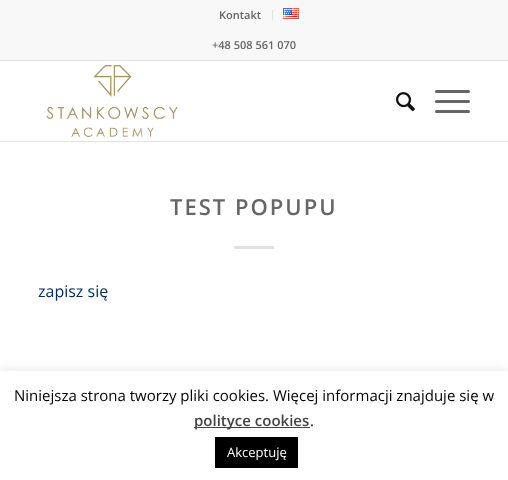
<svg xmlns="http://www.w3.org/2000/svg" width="508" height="480">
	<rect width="100%" height="100%" fill="#FFFFFF" />
	<rect x="0" y="0" width="508" height="60" fill="#F8F8F8" />
	<rect x="0" y="60" width="508" height="1" fill="#E1E1E1" />
	<rect x="272" y="10" width="1" height="10" fill="#E1E1E1" />
	<text x="219" y="19" font-family="Open Sans" font-size="11" font-weight="600" fill="#666666">Kontakt</text>
	<image x="283" y="8" width="16" height="11" href="assets/img1.png" />
	<text x="212" y="49" font-family="Open Sans" font-size="11" font-weight="600" fill="#666666">+48 508 561 070</text>
	<rect x="0" y="141" width="508" height="1" fill="#E1E1E1" />
	<image x="46" y="64" width="132" height="73" href="assets/img2.png" />
	<image x="396" y="92" width="19" height="20" href="assets/img3.png" />
	<rect x="435" y="100" width="35" height="3" rx="1.5" fill="#666666" />
	<rect x="435" y="90" width="35" height="3" rx="1.5" fill="#666666" />
	<rect x="435" y="110" width="35" height="3" rx="1.5" fill="#666666" />
	<text x="170" y="215" font-family="Open Sans" font-size="22" font-weight="600" letter-spacing="2" fill="#666666">TEST POPUPU</text>
	<rect x="234" y="246" width="40" height="3" fill="#E1E1E1" />
	<text x="38" y="297" font-family="Open Sans" font-size="16" fill="#022F62">zapisz się</text>
	<rect x="0" y="370" width="508" height="109" fill="#ACABAB" fill-opacity="0.3" filter="blur(5px)" />
	<rect x="0" y="371" width="508" height="109" fill="#FFFFFF" />
	<text x="14" y="401" font-family="Open Sans" font-size="15" fill="#000000">Niniejsza strona tworzy pliki cookies. Więcej informacji znajduje się w</text>
	<rect x="194" y="427" width="116" height="1" fill="#444444" />
	<text x="194" y="426" font-family="Open Sans" font-size="15" font-weight="600" fill="#444444">polityce cookies</text>
	<text x="310" y="426" font-family="Open Sans" font-size="15" fill="#000000">.</text>
	<rect x="215" y="437" width="83" height="31" fill="#000000" />
	<text x="227" y="457" font-family="Open Sans" font-size="13" fill="#FFFFFF">Akceptuję</text>
</svg>
